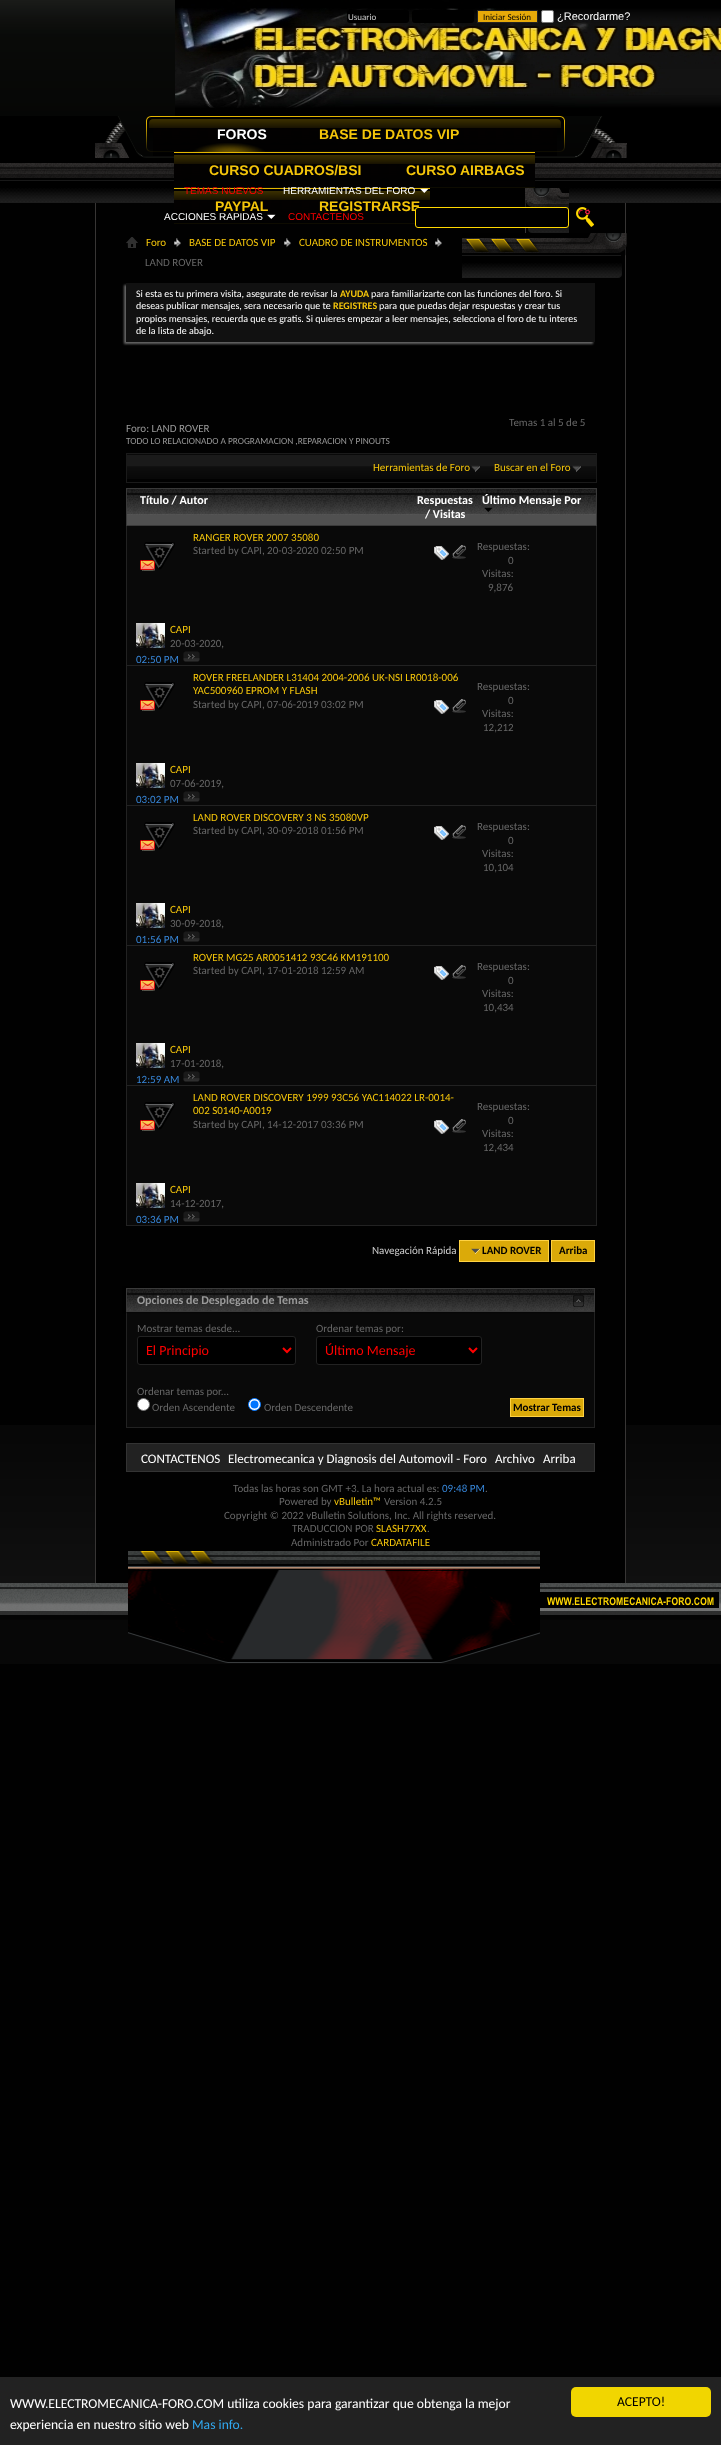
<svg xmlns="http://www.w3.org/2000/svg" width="721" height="2445">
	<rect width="100%" height="100%" fill="#010101" />
	<image x="0" y="0" width="175" height="116" href="assets/img1.png" />
	<image x="175" y="0" width="546" height="116" href="assets/img2.png" />
	<rect x="347" y="10" width="62" height="13" rx="3" fill="#000000" />
	<text x="348" y="20" font-family="Carlito" font-size="9" fill="#CCCCCC">Usuario</text>
	<rect x="412" y="10" width="62" height="13" rx="3" fill="#000000" />
	<rect x="477.5" y="10.5" width="60" height="12" fill="#E7AA09" stroke="#222222" />
	<text x="483" y="20" font-family="Carlito" font-size="9" fill="#000000">Iniciar Sesión</text>
	<rect x="541.5" y="10.5" width="12" height="12" rx="1.5" fill="#FFFFFF" stroke="#767676" />
	<text x="557" y="20" font-family="Liberation Sans" font-size="11" fill="#FFFFFF">¿Recordarme?</text>
	<image x="153" y="116" width="404" height="42" href="assets/img3.png" />
	<image x="0" y="116" width="153" height="42" href="assets/img4.png" />
	<image x="154" y="116" width="399" height="36" href="assets/img5.png" />
	<image x="193" y="143" width="72" height="9" href="assets/img6.png" />
	<text x="217" y="139" font-family="Liberation Sans" font-size="14" font-weight="700" fill="#FFFFFF">FOROS</text>
	<image x="284" y="116" width="185" height="36" href="assets/img7.png" />
	<text x="319" y="139" font-family="Liberation Sans" font-size="14" font-weight="700" fill="#F4C50A">BASE DE DATOS VIP</text>
	<image x="0" y="158" width="721" height="45" href="assets/img15.png" />
	<image x="174" y="152" width="197" height="36" href="assets/img8.png" />
	<text x="209" y="175" font-family="Liberation Sans" font-size="14" font-weight="700" fill="#F4C50A">CURSO CUADROS/BSI</text>
	<image x="371" y="152" width="164" height="36" href="assets/img9.png" />
	<text x="406" y="175" font-family="Liberation Sans" font-size="14" font-weight="700" fill="#F4C50A">CURSO AIRBAGS</text>
	<image x="174" y="188" width="110" height="36" href="assets/img12.png" />
	<text x="184" y="194" font-family="Liberation Sans" font-size="10" fill="#FF0000">TEMAS NUEVOS</text>
	<image x="284" y="188" width="146" height="36" href="assets/img13.png" />
	<text x="283" y="194" font-family="Liberation Sans" font-size="10" fill="#FFFFFF">HERRAMIENTAS DEL FORO</text>
	<image x="420" y="188" width="9" height="5" href="assets/img10.png" />
	<text x="164" y="220" font-family="Liberation Sans" font-size="10" fill="#FFFFFF">ACCIONES RAPIDAS</text>
	<image x="267" y="214" width="9" height="5" href="assets/img11.png" />
	<text x="288" y="220" font-family="Liberation Sans" font-size="10" fill="#FF0000">CONTACTENOS</text>
	<g font-family="Liberation Sans" font-size="14" font-weight="700" fill="#F4C50A">
		<text x="215" y="211">PAYPAL</text>
		<text x="319" y="211">REGISTRARSE</text>
	</g>
	<image x="557" y="116" width="164" height="42" href="assets/img14.png" />
	<image x="430" y="188" width="139" height="45" href="assets/img16.png" />
	<image x="0" y="1425" width="721" height="124" href="assets/img18.png" />
	<rect x="625" y="203" width="1" height="1346" fill="#373534" />
	<image x="462" y="233" width="165" height="45" href="assets/img17.png" />
	<rect x="96" y="1425" width="529" height="124" fill="#010101" />
	<rect x="95" y="203" width="1" height="1346" fill="#373534" />
	<rect x="415.5" y="207.5" width="153" height="20" rx="2.5" fill="#000000" stroke="#FFD800" />
	<image x="576" y="207" width="18" height="20" href="assets/img19.png" />
	<image x="126" y="237" width="12" height="11" href="assets/img20.png" />
	<image x="174" y="238" width="7" height="10" href="assets/img21.png" />
	<text x="146" y="246" font-family="Carlito" font-size="11" fill="#F4C50A">Foro</text>
	<image x="284" y="238" width="7" height="10" href="assets/img21.png" />
	<text x="189" y="246" font-family="Carlito" font-size="11" fill="#F4C50A">BASE DE DATOS VIP</text>
	<image x="435" y="238" width="7" height="10" href="assets/img21.png" />
	<text x="299" y="246" font-family="Carlito" font-size="11" fill="#F4C50A">CUADRO DE INSTRUMENTOS</text>
	<text x="145" y="266" font-family="Carlito" font-size="11" fill="#666666">LAND ROVER</text>
	<rect x="124" y="285" width="469" height="59" fill="#666666" filter="blur(1px)" />
	<rect x="126" y="283" width="469" height="59" fill="#111111" />
	<text x="136" y="297" font-family="Carlito" font-size="10" fill="#FFFFFF">Si esta es tu primera visita, asegurate de revisar la</text>
	<text x="340" y="297" font-family="Carlito" font-size="10" font-weight="700" fill="#F4C50A">AYUDA</text>
	<g font-family="Carlito" font-size="10" fill="#FFFFFF">
		<text x="371" y="297">para familiarizarte con las funciones del foro. Si</text>
		<text x="136" y="309">deseas publicar mensajes, sera necesario que te</text>
	</g>
	<text x="333" y="309" font-family="Carlito" font-size="10" font-weight="700" fill="#F4C50A">REGISTRES</text>
	<g font-family="Carlito" font-size="10" fill="#FFFFFF">
		<text x="379" y="309">para que puedas dejar respuestas y crear tus</text>
		<text x="136" y="322">propios mensajes, recuerda que es gratis. Si quieres empezar a leer mensajes, selecciona el foro de tu interes</text>
		<text x="136" y="334">de la lista de abajo.</text>
	</g>
	<text x="509" y="426" font-family="Carlito" font-size="11" fill="#666666">Temas 1 al 5 de 5</text>
	<text x="126" y="432" font-family="Carlito" font-size="11" fill="#999999">Foro: LAND ROVER</text>
	<text x="126" y="444" font-family="Carlito" font-size="9.35" fill="#999999">TODO LO RELACIONADO A PROGRAMACION ,REPARACION Y PINOUTS</text>
	<image x="127" y="454" width="469" height="25" href="assets/img22.png" />
	<rect x="126.5" y="453.5" width="470" height="29" fill="none" stroke="#1A1A1A" />
	<image x="471" y="465" width="9" height="7" href="assets/img23.png" />
	<text x="373" y="471" font-family="Carlito" font-size="11" fill="#F4C50A">Herramientas de Foro</text>
	<image x="572" y="465" width="9" height="7" href="assets/img23.png" />
	<text x="494" y="471" font-family="Carlito" font-size="11" fill="#F4C50A">Buscar en el Foro</text>
	<rect x="127" y="515" width="469" height="10" fill="#505050" />
	<image x="127" y="489" width="469" height="26" href="assets/img24.png" />
	<rect x="126.5" y="488.5" width="470" height="37" fill="none" stroke="#3A3A3A" />
	<g font-family="Carlito" font-size="12" font-weight="700" fill="#FFFFFF">
		<text x="140" y="504">Título / Autor</text>
		<text x="417" y="504">Respuestas</text>
		<text x="425" y="518">/ Visitas</text>
		<text x="482" y="504">Último Mensaje Por</text>
	</g>
	<image x="484" y="507" width="9" height="5" href="assets/img25.png" />
	<rect x="127" y="526" width="469" height="139" fill="#090909" />
	<rect x="596" y="526" width="1" height="700" fill="#222222" />
	<rect x="126" y="665" width="471" height="1" fill="#222222" />
	<rect x="126" y="526" width="1" height="140" fill="#222222" />
	<image x="140" y="542" width="35" height="29" href="assets/img26.png" />
	<text x="193" y="541" font-family="Carlito" font-size="11" fill="#F4C50A">RANGER ROVER 2007 35080</text>
	<text x="193" y="554" font-family="Carlito" font-size="11" fill="#666666">Started by CAPI, 20-03-2020 02:50 PM</text>
	<image x="434" y="546" width="15" height="14" href="assets/img27.png" />
	<image x="452" y="545" width="14" height="14" href="assets/img28.png" />
	<g font-family="Carlito" font-size="11" fill="#666666">
		<text x="477" y="550">Respuestas:</text>
		<text x="508" y="564">0</text>
		<text x="482" y="577">Visitas:</text>
		<text x="488" y="591">9,876</text>
	</g>
	<image x="136" y="623" width="29" height="25" href="assets/img29.png" />
	<text x="170" y="633" font-family="Carlito" font-size="11" fill="#F4C50A">CAPI</text>
	<text x="170" y="647" font-family="Carlito" font-size="11" fill="#666666">20-03-2020,</text>
	<text x="136" y="663" font-family="Carlito" font-size="11" fill="#3786D8">02:50 PM</text>
	<image x="183" y="651" width="17" height="11" href="assets/img30.png" />
	<rect x="127" y="666" width="469" height="139" fill="#090909" />
	<rect x="126" y="805" width="471" height="1" fill="#222222" />
	<rect x="126" y="666" width="1" height="140" fill="#222222" />
	<image x="140" y="682" width="35" height="29" href="assets/img26.png" />
	<g font-family="Carlito" font-size="11" fill="#F4C50A">
		<text x="193" y="681">ROVER FREELANDER L31404 2004-2006 UK-NSI LR0018-006</text>
		<text x="193" y="694">YAC500960 EPROM Y FLASH</text>
	</g>
	<text x="193" y="708" font-family="Carlito" font-size="11" fill="#666666">Started by CAPI, 07-06-2019 03:02 PM</text>
	<image x="434" y="700" width="15" height="14" href="assets/img27.png" />
	<image x="452" y="699" width="14" height="14" href="assets/img28.png" />
	<g font-family="Carlito" font-size="11" fill="#666666">
		<text x="477" y="690">Respuestas:</text>
		<text x="508" y="704">0</text>
		<text x="482" y="717">Visitas:</text>
		<text x="483" y="731">12,212</text>
	</g>
	<image x="136" y="763" width="29" height="25" href="assets/img29.png" />
	<text x="170" y="773" font-family="Carlito" font-size="11" fill="#F4C50A">CAPI</text>
	<text x="170" y="787" font-family="Carlito" font-size="11" fill="#666666">07-06-2019,</text>
	<text x="136" y="803" font-family="Carlito" font-size="11" fill="#3786D8">03:02 PM</text>
	<image x="183" y="791" width="17" height="11" href="assets/img30.png" />
	<rect x="127" y="806" width="469" height="139" fill="#090909" />
	<rect x="126" y="945" width="471" height="1" fill="#222222" />
	<rect x="126" y="806" width="1" height="140" fill="#222222" />
	<image x="140" y="822" width="35" height="29" href="assets/img26.png" />
	<text x="193" y="821" font-family="Carlito" font-size="11" fill="#F4C50A">LAND ROVER DISCOVERY 3 NS 35080VP</text>
	<text x="193" y="834" font-family="Carlito" font-size="11" fill="#666666">Started by CAPI, 30-09-2018 01:56 PM</text>
	<image x="434" y="826" width="15" height="14" href="assets/img27.png" />
	<image x="452" y="825" width="14" height="14" href="assets/img28.png" />
	<g font-family="Carlito" font-size="11" fill="#666666">
		<text x="477" y="830">Respuestas:</text>
		<text x="508" y="844">0</text>
		<text x="482" y="857">Visitas:</text>
		<text x="483" y="871">10,104</text>
	</g>
	<image x="136" y="903" width="29" height="25" href="assets/img29.png" />
	<text x="170" y="913" font-family="Carlito" font-size="11" fill="#F4C50A">CAPI</text>
	<text x="170" y="927" font-family="Carlito" font-size="11" fill="#666666">30-09-2018,</text>
	<text x="136" y="943" font-family="Carlito" font-size="11" fill="#3786D8">01:56 PM</text>
	<image x="183" y="931" width="17" height="11" href="assets/img30.png" />
	<rect x="127" y="946" width="469" height="139" fill="#090909" />
	<rect x="126" y="1085" width="471" height="1" fill="#222222" />
	<rect x="126" y="946" width="1" height="140" fill="#222222" />
	<image x="140" y="962" width="35" height="29" href="assets/img26.png" />
	<text x="193" y="961" font-family="Carlito" font-size="11" fill="#F4C50A">ROVER MG25 AR0051412 93C46 KM191100</text>
	<text x="193" y="974" font-family="Carlito" font-size="11" fill="#666666">Started by CAPI, 17-01-2018 12:59 AM</text>
	<image x="434" y="966" width="15" height="14" href="assets/img27.png" />
	<image x="452" y="965" width="14" height="14" href="assets/img28.png" />
	<g font-family="Carlito" font-size="11" fill="#666666">
		<text x="477" y="970">Respuestas:</text>
		<text x="508" y="984">0</text>
		<text x="482" y="997">Visitas:</text>
		<text x="483" y="1011">10,434</text>
	</g>
	<image x="136" y="1043" width="29" height="25" href="assets/img31.png" />
	<text x="170" y="1053" font-family="Carlito" font-size="11" fill="#F4C50A">CAPI</text>
	<text x="170" y="1067" font-family="Carlito" font-size="11" fill="#666666">17-01-2018,</text>
	<text x="136" y="1083" font-family="Carlito" font-size="11" fill="#3786D8">12:59 AM</text>
	<image x="183" y="1071" width="17" height="11" href="assets/img30.png" />
	<rect x="127" y="1086" width="469" height="139" fill="#090909" />
	<rect x="126" y="1225" width="471" height="1" fill="#222222" />
	<rect x="126" y="1086" width="1" height="140" fill="#222222" />
	<image x="140" y="1102" width="35" height="29" href="assets/img26.png" />
	<g font-family="Carlito" font-size="11" fill="#F4C50A">
		<text x="193" y="1101">LAND ROVER DISCOVERY 1999 93C56 YAC114022 LR-0014-</text>
		<text x="193" y="1114">002 S0140-A0019</text>
	</g>
	<text x="193" y="1128" font-family="Carlito" font-size="11" fill="#666666">Started by CAPI, 14-12-2017 03:36 PM</text>
	<image x="434" y="1120" width="15" height="14" href="assets/img27.png" />
	<image x="452" y="1119" width="14" height="14" href="assets/img28.png" />
	<g font-family="Carlito" font-size="11" fill="#666666">
		<text x="477" y="1110">Respuestas:</text>
		<text x="508" y="1124">0</text>
		<text x="482" y="1137">Visitas:</text>
		<text x="483" y="1151">12,434</text>
	</g>
	<image x="136" y="1183" width="29" height="25" href="assets/img29.png" />
	<text x="170" y="1193" font-family="Carlito" font-size="11" fill="#F4C50A">CAPI</text>
	<text x="170" y="1207" font-family="Carlito" font-size="11" fill="#666666">14-12-2017,</text>
	<text x="136" y="1223" font-family="Carlito" font-size="11" fill="#3786D8">03:36 PM</text>
	<image x="183" y="1211" width="17" height="11" href="assets/img30.png" />
	<text x="372" y="1254" font-family="Carlito" font-size="11" fill="#CCCCCC">Navegación Rápida</text>
	<rect x="459.5" y="1240.5" width="89" height="21" fill="#DBAA09" stroke="#FFD242" />
	<image x="471" y="1248" width="9" height="6" href="assets/img32.png" />
	<text x="482" y="1254" font-family="Carlito" font-size="11" font-weight="700" fill="#000000">LAND ROVER</text>
	<rect x="551.5" y="1240.5" width="43" height="21" fill="#DBAA09" stroke="#FFD242" />
	<text x="559" y="1254" font-family="Carlito" font-size="11" font-weight="700" fill="#000000">Arriba</text>
	<rect x="127" y="1312" width="467" height="115" fill="#090909" />
	<rect x="594" y="1312" width="1" height="116" fill="#222222" />
	<rect x="126" y="1427" width="469" height="1" fill="#222222" />
	<rect x="126" y="1312" width="1" height="116" fill="#222222" />
	<rect x="124" y="1288" width="469" height="24" fill="#000000" filter="blur(1px)" />
	<image x="127" y="1289" width="467" height="22" href="assets/img33.png" />
	<rect x="126.5" y="1288.5" width="468" height="23" fill="none" stroke="#3A3A3A" />
	<text x="137" y="1304" font-family="Carlito" font-size="12" font-weight="700" fill="#999999">Opciones de Desplegado de Temas</text>
	<image x="573" y="1295" width="11" height="12" href="assets/img34.png" />
	<text x="137" y="1332" font-family="Carlito" font-size="11" fill="#666666">Mostrar temas desde...</text>
	<rect x="137.5" y="1336.5" width="158" height="28" rx="2.5" fill="#000000" stroke="#222222" />
	<path d="M283 1348L287 1352L291 1348" fill="none" stroke="#FF0000" stroke-width="2" />
	<text x="146" y="1355" font-family="Carlito" font-size="14" fill="#FF0000">El Principio</text>
	<text x="316" y="1332" font-family="Carlito" font-size="11" fill="#666666">Ordenar temas por:</text>
	<rect x="316.5" y="1336.5" width="165" height="28" rx="2.5" fill="#000000" stroke="#222222" />
	<path d="M469 1348L473 1352L477 1348" fill="none" stroke="#FF0000" stroke-width="2" />
	<text x="325" y="1355" font-family="Carlito" font-size="14" fill="#FF0000">Último Mensaje</text>
	<text x="137" y="1395" font-family="Carlito" font-size="11" fill="#666666">Ordenar temas por...</text>
	<circle cx="143.5" cy="1404.5" r="6" fill="#FFFFFF" stroke="#767676" />
	<text x="152" y="1411" font-family="Carlito" font-size="11" fill="#666666">Orden Ascendente</text>
	<circle cx="254.5" cy="1404.5" r="6" fill="#FFFFFF" stroke="#0075FF" />
	<circle cx="254.5" cy="1404.5" r="4" fill="#0075FF" />
	<text x="264" y="1411" font-family="Carlito" font-size="11" fill="#666666">Orden Descendente</text>
	<rect x="510.5" y="1398.5" width="73" height="18" fill="#DBAA09" stroke="#FFD242" />
	<text x="513" y="1411" font-family="Carlito" font-size="11" font-weight="700" fill="#000000">Mostrar Temas</text>
	<rect x="126.5" y="1443.5" width="468" height="28" fill="#222222" stroke="#333333" />
	<g font-family="Carlito" font-size="13" fill="#FFFFFF">
		<text x="141" y="1463">CONTACTENOS</text>
		<text x="228" y="1463">Electromecanica y Diagnosis del Automovil - Foro</text>
		<text x="495" y="1463">Archivo</text>
		<text x="543" y="1463">Arriba</text>
	</g>
	<text x="233" y="1492" font-family="Carlito" font-size="11" fill="#666666">Todas las horas son GMT +3. La hora actual es:</text>
	<text x="442" y="1492" font-family="Carlito" font-size="11" fill="#3786D8">09:48 PM</text>
	<g font-family="Carlito" font-size="11" fill="#666666">
		<text x="485" y="1492">.</text>
		<text x="279" y="1505">Powered by</text>
	</g>
	<text x="334" y="1505" font-family="Carlito" font-size="11" fill="#F4C50A">vBulletin™</text>
	<g font-family="Carlito" font-size="11" fill="#666666">
		<text x="384" y="1505">Version 4.2.5</text>
		<text x="224" y="1519">Copyright © 2022 vBulletin Solutions, Inc. All rights reserved.</text>
		<text x="292" y="1532">TRADUCCION POR</text>
	</g>
	<text x="376" y="1532" font-family="Carlito" font-size="11" fill="#F4C50A">SLASH77XX</text>
	<g font-family="Carlito" font-size="11" fill="#666666">
		<text x="427" y="1532">.</text>
		<text x="291" y="1546">Administrado Por</text>
	</g>
	<text x="371" y="1546" font-family="Carlito" font-size="11" fill="#F4C50A">CARDATAFILE</text>
	<image x="0" y="1604" width="721" height="60" href="assets/img35.png" />
	<image x="0" y="1549" width="128" height="55" href="assets/img36.png" />
	<image x="128" y="1551" width="412" height="112" href="assets/img37.png" />
	<image x="540" y="1549" width="181" height="59" href="assets/img38.png" />
	<rect x="0" y="2377" width="721" height="68" fill="#222222" />
	<g font-family="Carlito" font-size="13.6" fill="#FFFFFF">
		<text x="10" y="2408">WWW.ELECTROMECANICA-FORO.COM utiliza cookies para garantizar que obtenga la mejor</text>
		<text x="10" y="2429">experiencia en nuestro sitio web</text>
	</g>
	<text x="192" y="2429" font-family="Carlito" font-size="13.6" fill="#31A8F0">Mas info.</text>
	<rect x="571" y="2387" width="140" height="30" rx="5" fill="#F1D600" />
	<text x="617" y="2406" font-family="Carlito" font-size="13.6" fill="#000000">ACEPTO!</text>
</svg>
